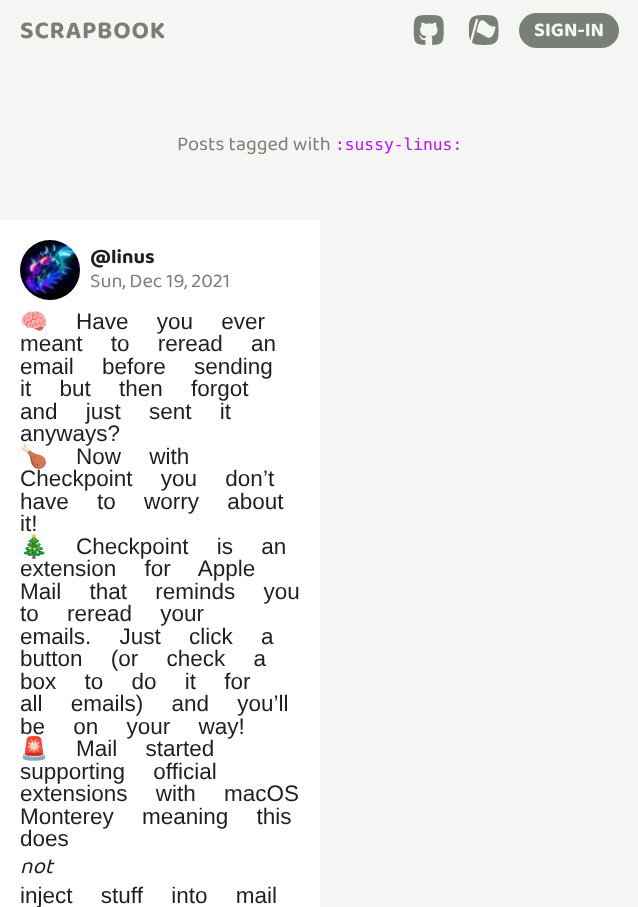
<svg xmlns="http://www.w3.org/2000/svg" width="638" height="907">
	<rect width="100%" height="100%" fill="#F5F5F4" />
	<text x="20" y="38" font-family="'Baloo 2'" font-size="25" font-weight="700" letter-spacing="0.75" fill="#777F76">SCRAPBOOK</text>
	<image x="413" y="15" width="31" height="30" href="assets/img1.png" />
	<image x="468" y="15" width="31" height="30" href="assets/img2.png" />
	<rect x="519" y="13" width="100" height="35" rx="17.5" fill="#777F76" />
	<text x="534" y="36" font-family="'Baloo 2'" font-size="20" font-weight="700" fill="#F5F5F4">SIGN-IN</text>
	<text x="177" y="150" font-family="'Baloo 2'" font-size="20" fill="#777F76">Posts tagged with</text>
	<text x="335" y="150" font-family="DejaVu Sans Mono" font-size="16.25" fill="#C210FF">:sussy-linus:</text>
	<rect x="0" y="220" width="320" height="687" fill="#FFFFFF" />
	<image x="20" y="240" width="60" height="60" href="assets/img3.png" />
	<text x="90" y="263" font-family="'Baloo 2'" font-size="20" font-weight="700" fill="#1D201D">@linus</text>
	<text x="90" y="287" font-family="'Baloo 2'" font-size="20" fill="#777F76">Sun, Dec 19, 2021</text>
	<text x="20" y="329" font-family="Noto Color Emoji" font-size="22.5" fill="#1D201D">🧠</text>
	<g font-family="Liberation Sans" font-size="22.5" fill="#1D201D">
		<text x="76" y="329" word-spacing="22">Have you ever</text>
		<text x="20" y="351" word-spacing="22">meant to reread an</text>
		<text x="20" y="374" word-spacing="22">email before sending</text>
		<text x="20" y="396" word-spacing="22">it but then forgot</text>
		<text x="20" y="419" word-spacing="22">and just sent it</text>
		<text x="20" y="441">anyways?</text>
	</g>
	<text x="20" y="464" font-family="Noto Color Emoji" font-size="22.5" fill="#1D201D">🍗</text>
	<g font-family="Liberation Sans" font-size="22.5" fill="#1D201D">
		<text x="76" y="464" word-spacing="22">Now with</text>
		<text x="20" y="486" word-spacing="22">Checkpoint you don’t</text>
		<text x="20" y="509" word-spacing="22">have to worry about</text>
		<text x="20" y="531">it!</text>
	</g>
	<text x="20" y="554" font-family="Noto Color Emoji" font-size="22.5" fill="#1D201D">🎄</text>
	<g font-family="Liberation Sans" font-size="22.5" fill="#1D201D">
		<text x="76" y="554" word-spacing="22">Checkpoint is an</text>
		<text x="20" y="576" word-spacing="22">extension for Apple</text>
		<text x="20" y="599" word-spacing="22">Mail that reminds you</text>
		<text x="20" y="621" word-spacing="22">to reread your</text>
		<text x="20" y="644" word-spacing="22">emails. Just click a</text>
		<text x="20" y="666" word-spacing="22">button (or check a</text>
		<text x="20" y="689" word-spacing="22">box to do it for</text>
		<text x="20" y="711" word-spacing="22">all emails) and you’ll</text>
		<text x="20" y="734" word-spacing="22">be on your way!</text>
	</g>
	<text x="20" y="756" font-family="Noto Color Emoji" font-size="22.5" fill="#1D201D">🚨</text>
	<g font-family="Liberation Sans" font-size="22.5" fill="#1D201D">
		<text x="76" y="756" word-spacing="22">Mail started</text>
		<text x="20" y="779" word-spacing="22">supporting official</text>
		<text x="20" y="801" word-spacing="22">extensions with macOS</text>
		<text x="20" y="824" word-spacing="22">Monterey meaning this</text>
		<text x="20" y="846">does</text>
	</g>
	<text x="20" y="873" font-family="'Baloo 2'" font-size="22.5" font-style="italic" fill="#1D201D">not</text>
	<text x="20" y="903" word-spacing="22" font-family="Liberation Sans" font-size="22.5" fill="#1D201D">inject stuff into mail</text>
</svg>
